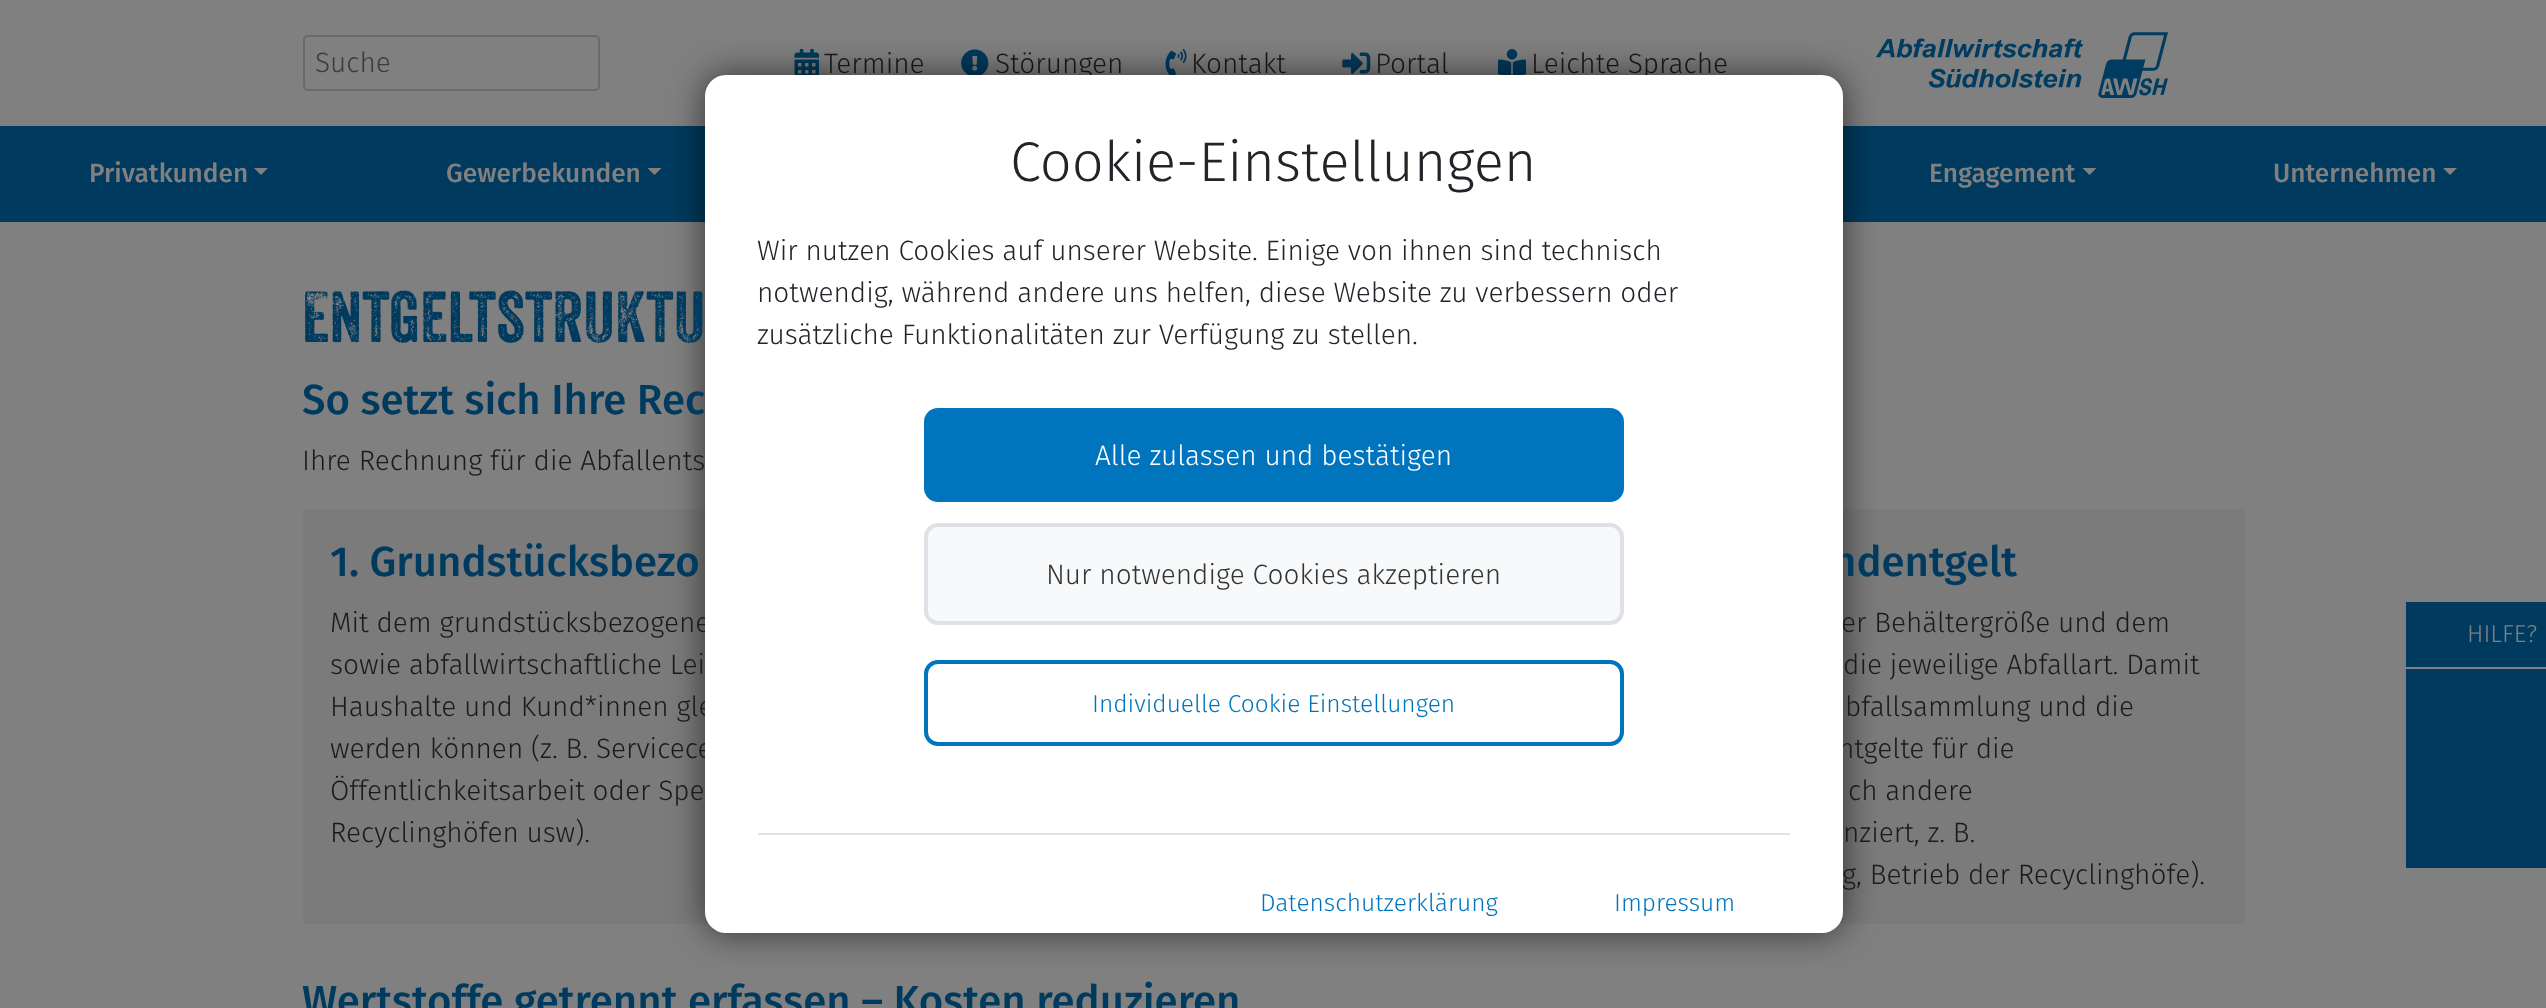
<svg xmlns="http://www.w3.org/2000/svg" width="2546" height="1008">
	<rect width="100%" height="100%" fill="#808080" />
	<rect x="304" y="36" width="295" height="54" rx="4" fill="none" stroke="#6A6A6A" stroke-width="2" />
	<text x="315" y="72" font-family="Fira Sans" font-size="28" font-weight="300" fill="#3B3B3B">Suche</text>
	<image x="794" y="49" width="25" height="26" href="assets/img1.png" />
	<text x="824" y="73" font-family="Fira Sans" font-size="28" font-weight="300" fill="#1A1A1A">Termine</text>
	<image x="961" y="49" width="28" height="26" href="assets/img2.png" />
	<text x="995" y="73" font-family="Fira Sans" font-size="28" font-weight="300" fill="#1A1A1A">Störungen</text>
	<image x="1165" y="49" width="22" height="26" href="assets/img3.png" />
	<text x="1191" y="73" font-family="Fira Sans" font-size="28" font-weight="300" fill="#1A1A1A">Kontakt</text>
	<image x="1342" y="52" width="29" height="22" href="assets/img4.png" />
	<text x="1375" y="73" font-family="Fira Sans" font-size="28" font-weight="300" fill="#1A1A1A">Portal</text>
	<image x="1498" y="49" width="28" height="26" href="assets/img5.png" />
	<text x="1531" y="73" font-family="Fira Sans" font-size="28" font-weight="300" fill="#1A1A1A">Leichte Sprache</text>
	<image x="1876" y="32" width="292" height="66" href="assets/img6.png" />
	<rect x="0" y="126" width="2546" height="96" fill="#003B5F" />
	<text x="89" y="182" font-family="Fira Sans" font-size="26.25" font-weight="500" fill="#808080">Privatkunden</text>
	<path d="M254 168H268L261 175Z" fill="#808080" />
	<text x="446" y="182" font-family="Fira Sans" font-size="26.25" font-weight="500" fill="#808080">Gewerbekunden</text>
	<path d="M647.5 168H661.5L654.5 175Z" fill="#808080" />
	<text x="1929" y="182" font-family="Fira Sans" font-size="26.25" font-weight="500" fill="#808080">Engagement</text>
	<path d="M2082.5 168H2096.5L2089.5 175Z" fill="#808080" />
	<text x="2273" y="182" font-family="Fira Sans" font-size="26.25" font-weight="500" fill="#808080">Unternehmen</text>
	<path d="M2443 168H2457L2450 175Z" fill="#808080" />
	<rect x="303" y="509" width="406" height="415" fill="#7B7B7B" />
	<rect x="1839" y="509" width="406" height="415" fill="#7B7B7B" />
	<rect x="705" y="75" width="1138" height="858" rx="21" fill="#000000" fill-opacity="0.6" filter="blur(17.5px)" />
	<g font-family="Fira Sans" font-size="28" font-weight="300" fill="#1A1A1A">
		<text x="330" y="632">Mit dem grundstücksbezogene</text>
		<text x="330" y="716">Haushalte und Kund*innen gle</text>
		<text x="330" y="758">werden können (z. B. Servicece</text>
	</g>
	<text x="1832" y="576" font-family="Fira Sans" font-size="42" font-weight="500" fill="#003B5F">ndentgelt</text>
	<g font-family="Fira Sans" font-size="28" font-weight="300" fill="#1A1A1A">
		<text x="1841" y="632">er Behältergröße und dem</text>
		<text x="1838" y="758">ntgelte für die</text>
	</g>
	<rect x="705" y="75" width="1138" height="858" rx="21" fill="#FFFFFF" />
	<text x="1010" y="181" font-family="Fira Sans" font-size="56" font-weight="300" fill="#212529">Cookie-Einstellungen</text>
	<g font-family="Fira Sans" font-size="28" font-weight="300" fill="#212529">
		<text x="757" y="260">Wir nutzen Cookies auf unserer Website. Einige von ihnen sind technisch</text>
		<text x="757" y="302">notwendig, während andere uns helfen, diese Website zu verbessern oder</text>
		<text x="757" y="344">zusätzliche Funktionalitäten zur Verfügung zu stellen.</text>
	</g>
	<rect x="924" y="408" width="700" height="94" rx="14" fill="#0075BD" />
	<text x="1095" y="465" font-family="Fira Sans" font-size="28" font-weight="300" fill="#FFFFFF">Alle zulassen und bestätigen</text>
	<rect x="926" y="525" width="696" height="98" rx="12" fill="#F8F9FA" stroke="#DEE2E6" stroke-width="4" />
	<text x="1046" y="584" font-family="Fira Sans" font-size="28" font-weight="300" fill="#333333">Nur notwendige Cookies akzeptieren</text>
	<rect x="926" y="662" width="696" height="82" rx="12" fill="none" stroke="#0075BD" stroke-width="4" />
	<text x="1092" y="712" font-family="Fira Sans" font-size="24.5" font-weight="300" fill="#0075BD">Individuelle Cookie Einstellungen</text>
	<rect x="758" y="833" width="1032" height="2" fill="#DEE2E6" />
	<g font-family="Fira Sans" font-size="24.5" font-weight="300" fill="#0075BD">
		<text x="1260" y="911">Datenschutzerklärung</text>
		<text x="1614" y="911">Impressum</text>
	</g>
	<text x="302" y="342" font-family="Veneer" font-size="70" fill="#003B5F">Entgeltstruktu</text>
	<text x="302" y="414" font-family="Fira Sans" font-size="42" font-weight="500" fill="#003B5F">So setzt sich Ihre Rec</text>
	<text x="302" y="470" font-family="Fira Sans" font-size="28" font-weight="300" fill="#1A1A1A">Ihre Rechnung für die Abfallents</text>
	<text x="330" y="576" font-family="Fira Sans" font-size="42" font-weight="500" fill="#003B5F">1. Grundstücksbezo</text>
	<g font-family="Fira Sans" font-size="28" font-weight="300" fill="#1A1A1A">
		<text x="330" y="674">sowie abfallwirtschaftliche Lei</text>
		<text x="330" y="800">Öffentlichkeitsarbeit oder Spe</text>
		<text x="330" y="842">Recyclinghöfen usw).</text>
		<text x="1843" y="674">die jeweilige Abfallart. Damit</text>
		<text x="1845" y="716">bfallsammlung und die</text>
		<text x="1848" y="800">ch andere</text>
		<text x="1843" y="842">nziert, z. B.</text>
		<text x="1842" y="884">g, Betrieb der Recyclinghöfe).</text>
	</g>
	<text x="302" y="1015" font-family="Fira Sans" font-size="42" font-weight="500" fill="#003B5F">Wertstoffe getrennt erfassen – Kosten reduzieren</text>
	<rect x="2406" y="602" width="140" height="266" fill="#003B5F" />
	<rect x="2406" y="667" width="140" height="2" fill="#808080" />
	<text x="2467" y="642" font-family="Fira Sans" font-size="24.5" font-weight="300" fill="#808080">HILFE?</text>
</svg>
